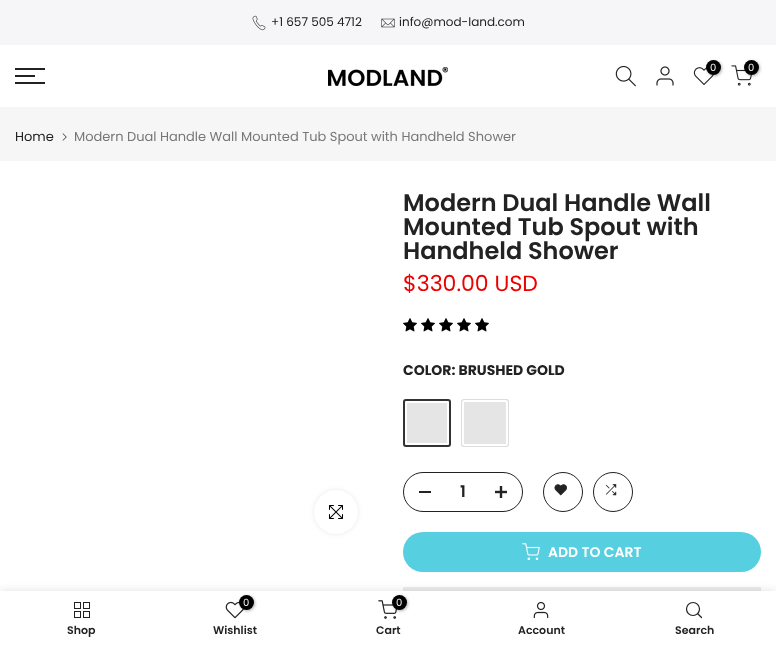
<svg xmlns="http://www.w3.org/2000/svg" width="776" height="646">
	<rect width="100%" height="100%" fill="#FFFFFF" />
	<rect x="0" y="0" width="776" height="45" fill="#F6F6F8" />
	<image x="252" y="15" width="14" height="16" href="assets/img1.png" />
	<text x="271" y="26" font-family="Poppins" font-size="12" fill="#222222">+1 657 505 4712</text>
	<image x="381" y="18" width="14" height="10" href="assets/img2.png" />
	<text x="399" y="26" font-family="Poppins" font-size="12" fill="#222222">info@mod-land.com</text>
	<rect x="15" y="68" width="30" height="2" fill="#222222" />
	<rect x="15" y="75" width="20" height="2" fill="#222222" />
	<rect x="15" y="82" width="30" height="2" fill="#222222" />
	<image x="328" y="67" width="120" height="19" href="assets/img3.png" />
	<image x="615" y="65" width="21" height="22" href="assets/img4.png" />
	<image x="656" y="66" width="18" height="20" href="assets/img5.png" />
	<image x="693" y="67" width="21" height="18" href="assets/img6.png" />
	<rect x="707" y="61" width="15" height="15" rx="7.5" fill="#000000" fill-opacity="0.3" filter="blur(1.5px)" />
	<circle cx="713.5" cy="67.5" r="7.5" fill="#000000" />
	<text x="710" y="71" font-family="Poppins" font-size="10" fill="#FFFFFF">0</text>
	<image x="731" y="65" width="21" height="21" href="assets/img7.png" />
	<rect x="745" y="61" width="15" height="15" rx="7.5" fill="#000000" fill-opacity="0.3" filter="blur(1.5px)" />
	<circle cx="751.5" cy="67.5" r="7.5" fill="#000000" />
	<text x="748" y="71" font-family="Poppins" font-size="10" fill="#FFFFFF">0</text>
	<rect x="0" y="107" width="776" height="54" fill="#F6F6F6" />
	<text x="15" y="141" font-family="Poppins" font-size="13" fill="#222222">Home</text>
	<image x="62" y="133" width="5" height="8" href="assets/img8.png" />
	<text x="74" y="141" font-family="Poppins" font-size="13" fill="#777777">Modern Dual Handle Wall Mounted Tub Spout with Handheld Shower</text>
	<rect x="314" y="490" width="44" height="44" rx="22" fill="#000000" fill-opacity="0.09" filter="blur(2.5px)" />
	<circle cx="336" cy="512" r="22" fill="#FFFFFF" />
	<image x="329" y="505" width="14" height="14" href="assets/img9.png" />
	<g font-family="Poppins" font-size="24" font-weight="600" fill="#222222">
		<text x="403" y="211">Modern Dual Handle Wall</text>
		<text x="403" y="235">Mounted Tub Spout with</text>
		<text x="403" y="259">Handheld Shower</text>
	</g>
	<text x="403" y="291" font-family="Poppins" font-size="22" fill="#EC0101">$330.00 USD</text>
	<image x="403" y="318" width="14" height="14" href="assets/img10.png" />
	<image x="421" y="318" width="14" height="14" href="assets/img10.png" />
	<image x="439" y="318" width="14" height="14" href="assets/img10.png" />
	<image x="457" y="318" width="14" height="14" href="assets/img10.png" />
	<image x="475" y="318" width="14" height="14" href="assets/img10.png" />
	<text x="403" y="375" font-family="Poppins" font-size="14" font-weight="700" fill="#222222">COLOR: BRUSHED GOLD</text>
	<rect x="403" y="399" width="48" height="48" rx="3" fill="#E5E5E5" />
	<rect x="406" y="402" width="42" height="42" fill="none" stroke="#FFFFFF" stroke-width="2" />
	<rect x="404" y="400" width="46" height="46" rx="2" fill="none" stroke="#333333" stroke-width="2" />
	<rect x="461" y="399" width="48" height="48" rx="3" fill="#E5E5E5" />
	<rect x="463" y="401" width="44" height="44" rx="1" fill="none" stroke="#FFFFFF" stroke-width="2" />
	<rect x="461.5" y="399.5" width="47" height="47" rx="2.5" fill="none" stroke="#DDDDDD" />
	<rect x="403.5" y="472.5" width="119" height="39" rx="19.5" fill="none" stroke="#222222" />
	<rect x="419" y="491" width="12" height="2" fill="#222222" />
	<text x="460" y="497" font-family="Poppins" font-size="16" font-weight="600" fill="#222222">1</text>
	<image x="495" y="486" width="12" height="12" href="assets/img11.png" />
	<circle cx="563" cy="492" r="19.5" fill="none" stroke="#222222" />
	<image x="554" y="484" width="13" height="12" href="assets/img12.png" />
	<circle cx="613" cy="492" r="19.5" fill="none" stroke="#222222" />
	<image x="605" y="484" width="12" height="12" href="assets/img13.png" />
	<rect x="403" y="532" width="358" height="40" rx="20" fill="#56CFE1" />
	<image x="522" y="543" width="18" height="18" href="assets/img14.png" />
	<text x="548" y="557" font-family="Poppins" font-size="14" font-weight="600" fill="#FFFFFF">ADD TO CART</text>
	<rect x="403" y="587" width="358" height="4" fill="#EBEBEB" />
	<rect x="0" y="591" width="776" height="55" fill="#000000" fill-opacity="0.12" filter="blur(4.5px)" />
	<rect x="0" y="591" width="776" height="55" fill="#FFFFFF" />
	<image x="74" y="602" width="16" height="16" href="assets/img15.png" />
	<text x="67" y="634" font-family="Poppins" font-size="11" font-weight="600" fill="#222222">Shop</text>
	<image x="225" y="601" width="19" height="18" href="assets/img16.png" />
	<rect x="240" y="596" width="15" height="15" rx="7.5" fill="#000000" fill-opacity="0.3" filter="blur(1.5px)" />
	<circle cx="246.5" cy="602.5" r="7.5" fill="#000000" />
	<text x="243" y="606" font-family="Poppins" font-size="10" fill="#FFFFFF">0</text>
	<text x="213" y="634" font-family="Poppins" font-size="11" font-weight="600" fill="#222222">Wishlist</text>
	<image x="378" y="600" width="19" height="19" href="assets/img17.png" />
	<rect x="393" y="596" width="15" height="15" rx="7.5" fill="#000000" fill-opacity="0.3" filter="blur(1.5px)" />
	<circle cx="399.5" cy="602.5" r="7.5" fill="#000000" />
	<text x="396" y="606" font-family="Poppins" font-size="10" fill="#FFFFFF">0</text>
	<text x="376" y="634" font-family="Poppins" font-size="11" font-weight="600" fill="#222222">Cart</text>
	<image x="533" y="601" width="16" height="18" href="assets/img18.png" />
	<text x="518" y="634" font-family="Poppins" font-size="11" font-weight="600" fill="#222222">Account</text>
	<circle cx="693" cy="609" r="6.5" fill="none" stroke="#222222" stroke-width="1.2" />
	<path d="M701.5 617.5L698 614" fill="none" stroke="#222222" stroke-width="1.2" stroke-linecap="round" stroke-linejoin="round" />
	<text x="675" y="634" font-family="Poppins" font-size="11" font-weight="600" fill="#222222">Search</text>
</svg>
